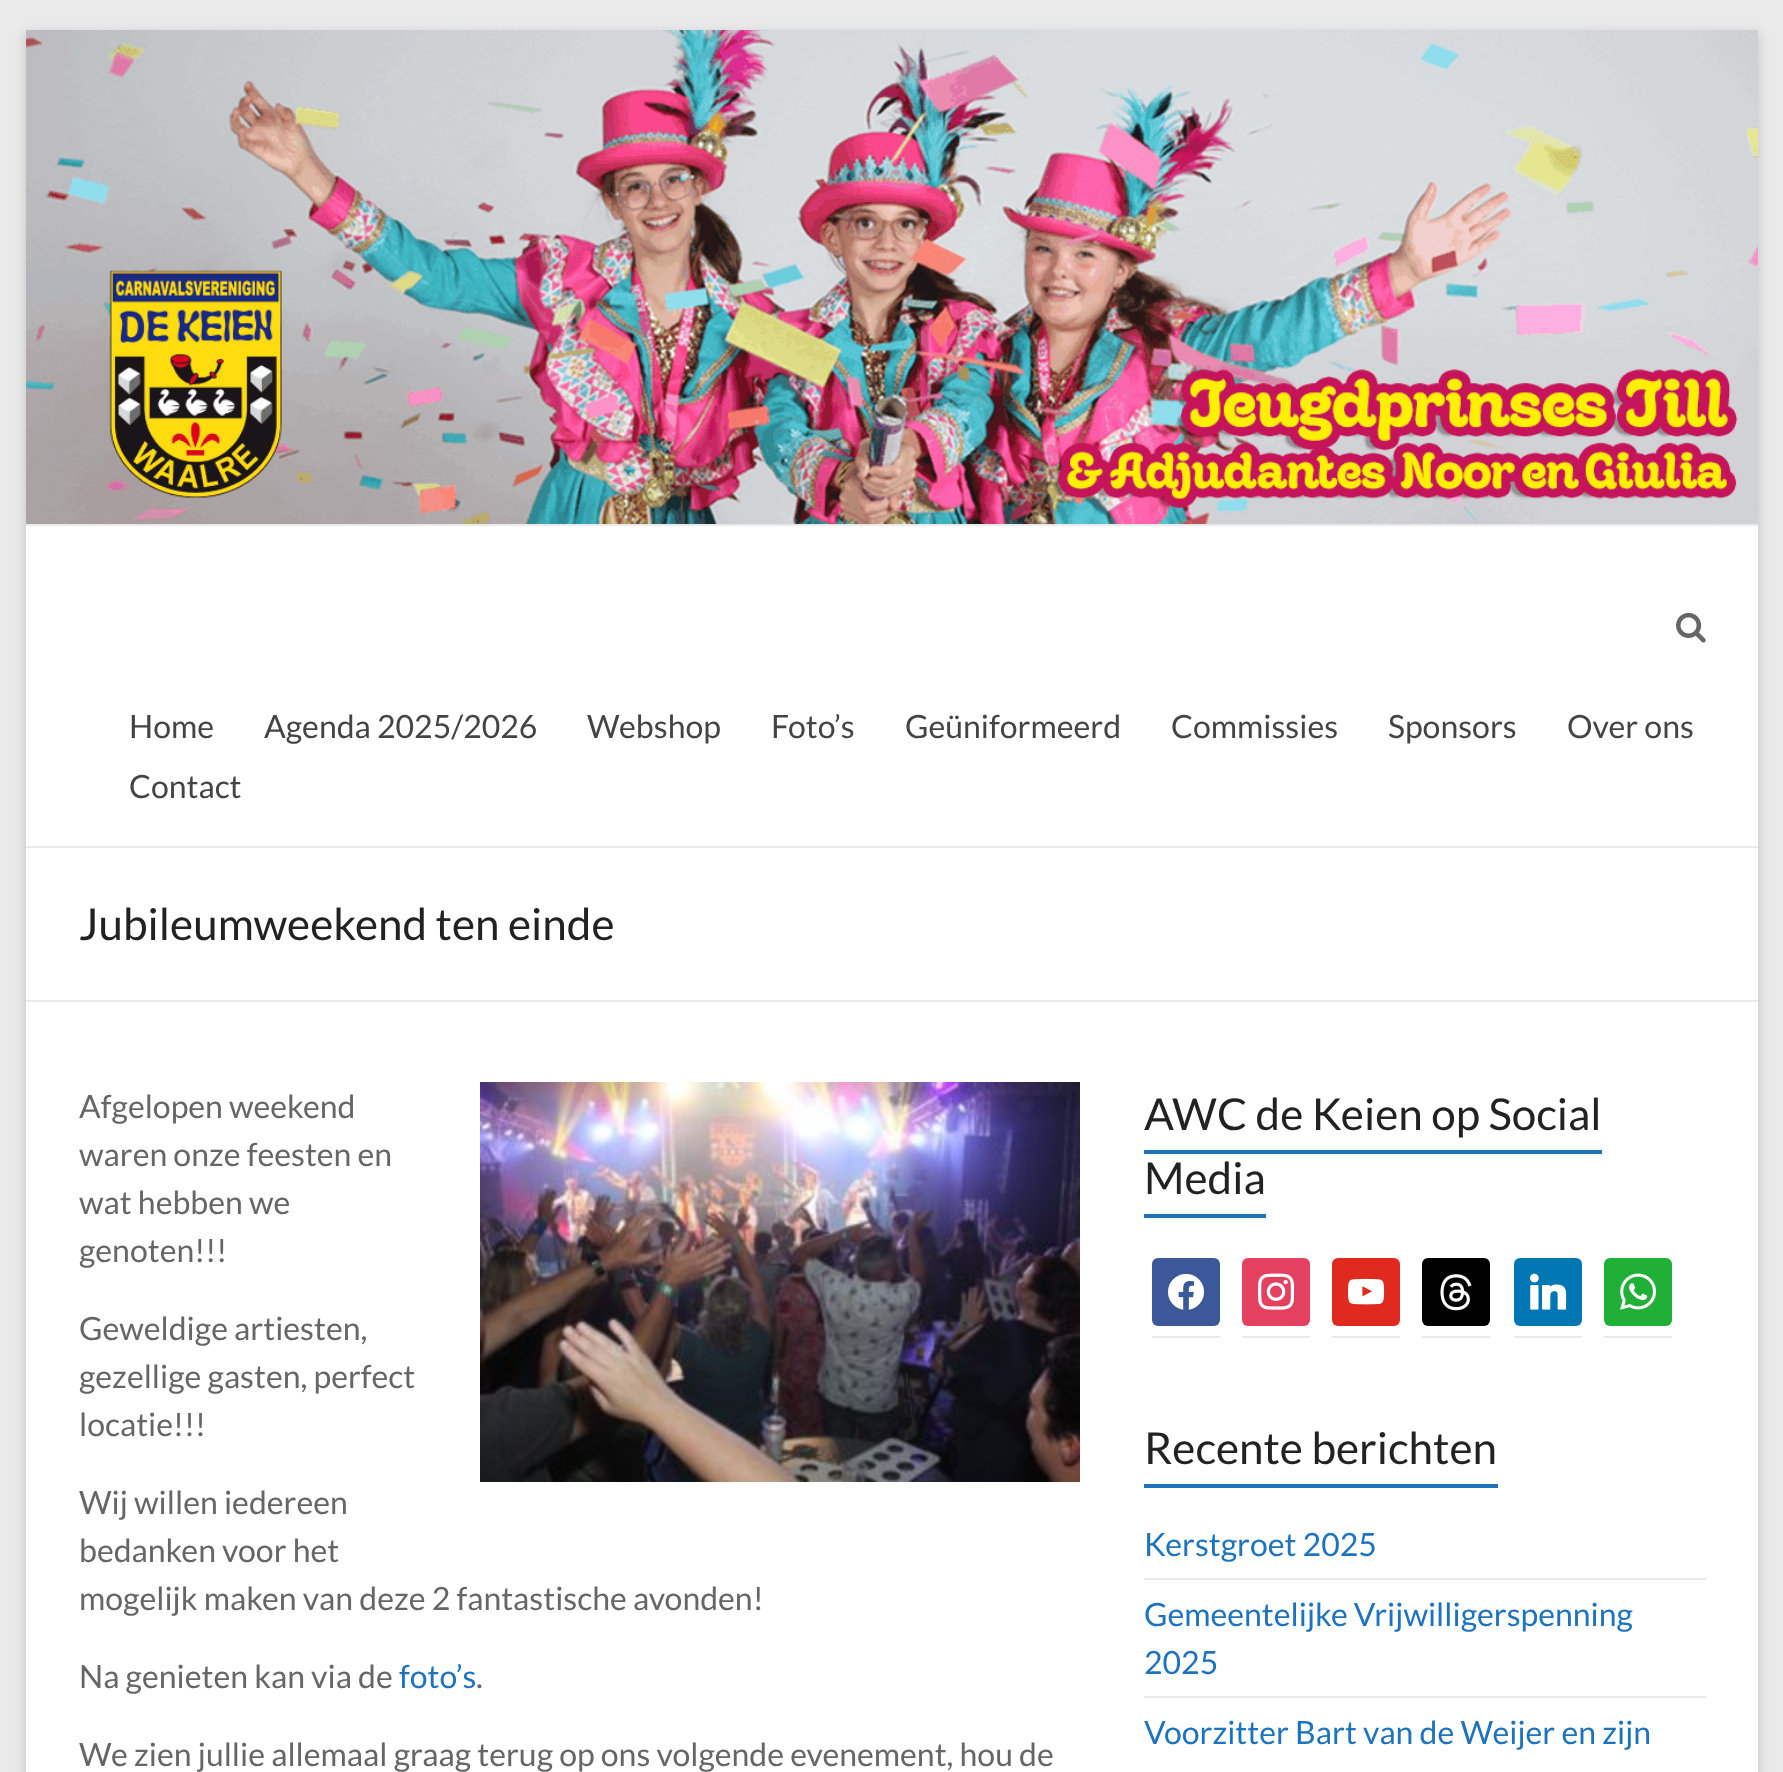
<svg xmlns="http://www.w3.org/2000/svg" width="1783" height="1772">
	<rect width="100%" height="100%" fill="#EAEAEA" />
	<rect x="26" y="34" width="1732" height="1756" fill="#646464" fill-opacity="0.3" filter="blur(6px)" />
	<rect x="26" y="526" width="1732" height="1246" fill="#FFFFFF" />
	<image x="26" y="30" width="1732" height="494" href="assets/img1.png" />
	<rect x="26" y="524" width="1732" height="2" fill="#EAEAEA" />
	<rect x="26" y="846" width="1732" height="2" fill="#EAEAEA" />
	<image x="1676" y="612" width="30" height="31" href="assets/img2.png" />
	<g font-family="Lato" font-size="32" fill="#444444">
		<text x="129" y="738">Home</text>
		<text x="264" y="738">Agenda 2025/2026</text>
		<text x="587" y="738">Webshop</text>
		<text x="771" y="738">Foto’s</text>
		<text x="905" y="738">Geüniformeerd</text>
		<text x="1171" y="738">Commissies</text>
		<text x="1388" y="738">Sponsors</text>
		<text x="1567" y="738">Over ons</text>
		<text x="129" y="798">Contact</text>
	</g>
	<rect x="26" y="1000" width="1732" height="2" fill="#EAEAEA" />
	<text x="79" y="940" font-family="Lato" font-size="44" fill="#222222">Jubileumweekend ten einde</text>
	<text x="79" y="1118" font-family="Lato" font-size="32" fill="#666666">Afgelopen weekend</text>
	<image x="480" y="1082" width="600" height="400" href="assets/img3.png" />
	<g font-family="Lato" font-size="32" fill="#666666">
		<text x="79" y="1166">waren onze feesten en</text>
		<text x="79" y="1214">wat hebben we</text>
		<text x="79" y="1262">genoten!!!</text>
		<text x="79" y="1340">Geweldige artiesten,</text>
		<text x="79" y="1388">gezellige gasten, perfect</text>
		<text x="79" y="1436">locatie!!!</text>
		<text x="79" y="1514">Wij willen iedereen</text>
		<text x="79" y="1562">bedanken voor het</text>
		<text x="79" y="1610">mogelijk maken van deze 2 fantastische avonden!</text>
		<text x="79" y="1688">Na genieten kan via de</text>
	</g>
	<text x="399" y="1688" font-family="Lato" font-size="32" fill="#1E73BE">foto’s</text>
	<g font-family="Lato" font-size="32" fill="#666666">
		<text x="476" y="1688">.</text>
		<text x="79" y="1766">We zien jullie allemaal graag terug op ons volgende evenement, hou de</text>
	</g>
	<g font-family="Lato" font-size="44" fill="#222222">
		<text x="1144" y="1130">AWC de Keien op Social</text>
		<text x="1144" y="1194">Media</text>
	</g>
	<rect x="1144" y="1150" width="458" height="4" fill="#1E73BE" />
	<rect x="1144" y="1214" width="122" height="4" fill="#1E73BE" />
	<rect x="1152" y="1336" width="68" height="2" fill="#EAEAEA" />
	<rect x="1152" y="1258" width="68" height="68" rx="6" fill="#3B5998" />
	<image x="1168" y="1273" width="36" height="37" href="assets/img4.png" />
	<rect x="1242" y="1336" width="68" height="2" fill="#EAEAEA" />
	<rect x="1242" y="1258" width="68" height="68" rx="6" fill="#E4405F" />
	<image x="1258" y="1273" width="37" height="37" href="assets/img5.png" />
	<rect x="1332" y="1336" width="68" height="2" fill="#EAEAEA" />
	<rect x="1332" y="1258" width="68" height="68" rx="6" fill="#E02A20" />
	<image x="1348" y="1278" width="37" height="27" href="assets/img6.png" />
	<rect x="1422" y="1336" width="68" height="2" fill="#EAEAEA" />
	<rect x="1422" y="1258" width="68" height="68" rx="6" fill="#000000" />
	<image x="1440" y="1274" width="32" height="37" href="assets/img7.png" />
	<rect x="1514" y="1336" width="68" height="2" fill="#EAEAEA" />
	<rect x="1514" y="1258" width="68" height="68" rx="6" fill="#0077B5" />
	<image x="1530" y="1273" width="37" height="37" href="assets/img8.png" />
	<rect x="1604" y="1336" width="68" height="2" fill="#EAEAEA" />
	<rect x="1604" y="1258" width="68" height="68" rx="6" fill="#20B038" />
	<image x="1620" y="1273" width="36" height="37" href="assets/img9.png" />
	<text x="1144" y="1464" font-family="Lato" font-size="44" fill="#222222">Recente berichten</text>
	<rect x="1144" y="1484" width="354" height="4" fill="#1E73BE" />
	<rect x="1144" y="1578" width="562" height="2" fill="#EAEAEA" />
	<text x="1144" y="1556" font-family="Lato" font-size="32" fill="#1E73BE">Kerstgroet 2025</text>
	<rect x="1144" y="1696" width="562" height="2" fill="#EAEAEA" />
	<g font-family="Lato" font-size="32" fill="#1E73BE">
		<text x="1144" y="1626">Gemeentelijke Vrijwilligerspenning</text>
		<text x="1144" y="1674">2025</text>
		<text x="1144" y="1744">Voorzitter Bart van de Weijer en zijn</text>
	</g>
</svg>
